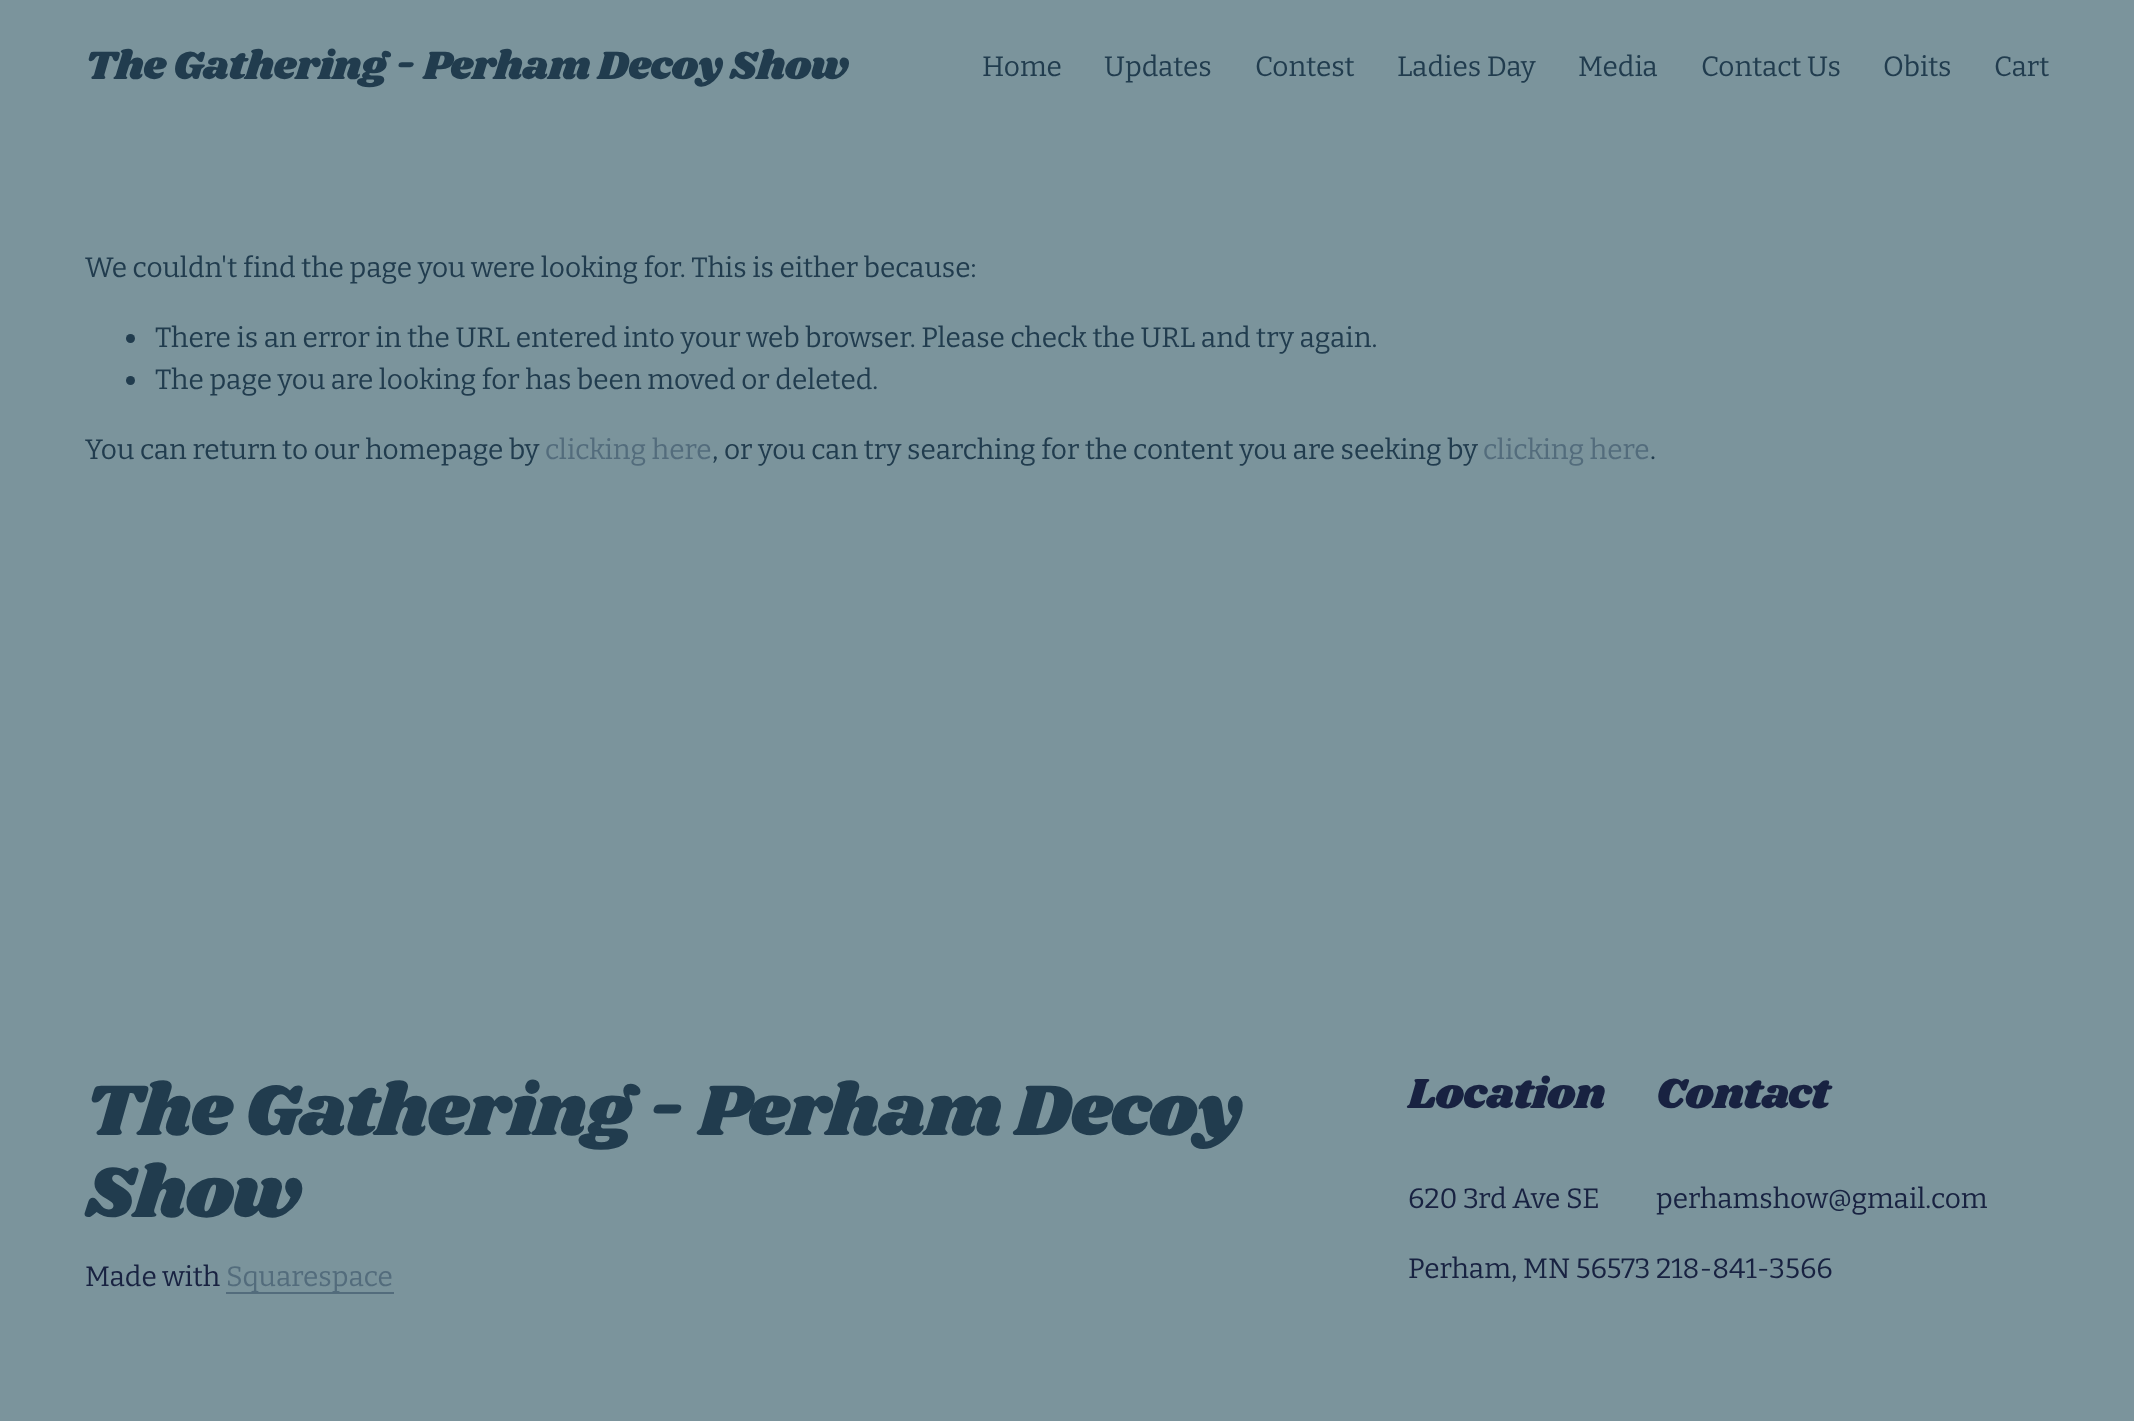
<svg xmlns="http://www.w3.org/2000/svg" width="2134" height="1421">
	<rect width="100%" height="100%" fill="#7B949C" />
	<text x="85" y="79" font-family="Shrikhand" font-size="40.8" letter-spacing="-0.8" fill="#213C4E">The Gathering - Perham Decoy Show</text>
	<g font-family="Bitter" font-size="28" fill="#213C4E">
		<text x="982" y="76">Home</text>
		<text x="1104" y="76">Updates</text>
		<text x="1255" y="76">Contest</text>
		<text x="1397" y="76">Ladies Day</text>
		<text x="1578" y="76">Media</text>
		<text x="1701" y="76">Contact Us</text>
		<text x="1883" y="76">Obits</text>
		<text x="1994" y="76">Cart</text>
		<text x="85" y="277">We couldn't find the page you were looking for. This is either because:</text>
	</g>
	<circle cx="130.5" cy="338.5" r="4.5" fill="#213C4E" />
	<text x="155" y="347" font-family="Bitter" font-size="28" fill="#213C4E">There is an error in the URL entered into your web browser. Please check the URL and try again.</text>
	<circle cx="130.5" cy="380.5" r="4.5" fill="#213C4E" />
	<g font-family="Bitter" font-size="28" fill="#213C4E">
		<text x="155" y="389">The page you are looking for has been moved or deleted.</text>
		<text x="85" y="459">You can return to our homepage by</text>
	</g>
	<text x="545" y="459" font-family="Bitter" font-size="28" fill="#536C7C">clicking here</text>
	<text x="712" y="459" font-family="Bitter" font-size="28" fill="#213C4E">, or you can try searching for the content you are seeking by</text>
	<text x="1483" y="459" font-family="Bitter" font-size="28" fill="#536C7C">clicking here</text>
	<text x="1650" y="459" font-family="Bitter" font-size="28" fill="#213C4E">.</text>
	<text x="1408" y="1108" font-family="Shrikhand" font-size="43.5" letter-spacing="-0.75" fill="#182241">Location</text>
	<g font-family="Bitter" font-size="28" fill="#182241">
		<text x="1408" y="1208">620 3rd Ave SE</text>
		<text x="1408" y="1278">Perham, MN 56573 218-841-3566</text>
	</g>
	<g font-family="Shrikhand" font-size="74.1" letter-spacing="-1.5" fill="#213C4E">
		<text x="85" y="1135">The Gathering - Perham Decoy</text>
		<text x="85" y="1217">Show</text>
	</g>
	<text x="1656" y="1108" font-family="Shrikhand" font-size="43.5" letter-spacing="-0.75" fill="#182241">Contact</text>
	<g font-family="Bitter" font-size="28" fill="#182241">
		<text x="1656" y="1208">perhamshow@gmail.com</text>
		<text x="85" y="1286">Made with</text>
	</g>
	<rect x="226" y="1292" width="168" height="2" fill="#536C7C" />
	<text x="226" y="1286" font-family="Bitter" font-size="28" fill="#536C7C">Squarespace</text>
</svg>
